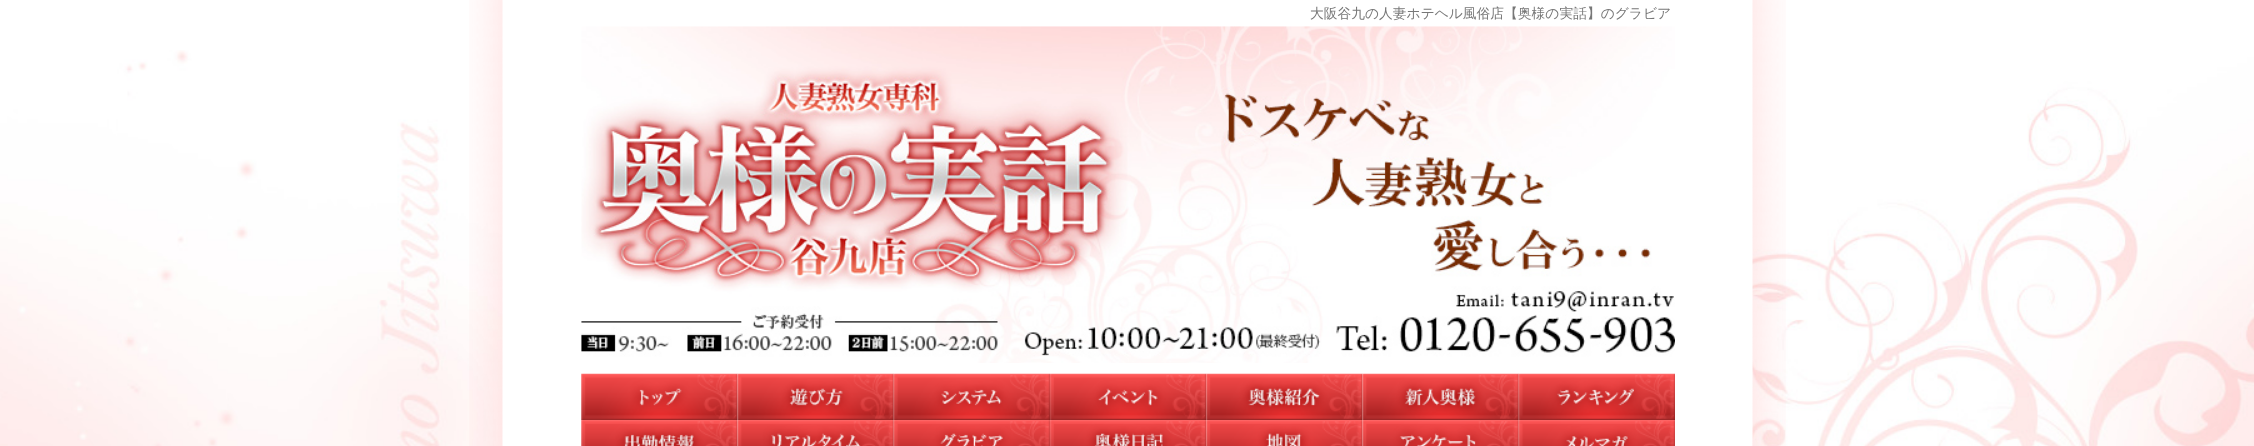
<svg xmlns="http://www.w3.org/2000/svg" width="2254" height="446">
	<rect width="100%" height="100%" fill="#FFFFFF" />
	<image x="0" y="50" width="2254" height="396" href="assets/img1.png" />
	<image x="469" y="0" width="1317" height="446" href="assets/img2.png" />
	<text x="1310" y="18" font-family="WenQuanYi Zen Hei" font-size="13.75" font-weight="500" fill="#777777">大阪谷九の人妻ホテヘル風俗店【奥様の実話】のグラビア</text>
	<image x="581" y="26" width="1094" height="337" href="assets/img3.png" />
	<image x="581" y="373" width="157" height="47" href="assets/img4.png" />
	<image x="737" y="373" width="157" height="47" href="assets/img5.png" />
	<image x="893" y="373" width="157" height="47" href="assets/img6.png" />
	<image x="1050" y="373" width="157" height="47" href="assets/img7.png" />
	<image x="1206" y="373" width="157" height="47" href="assets/img8.png" />
	<image x="1362" y="373" width="157" height="47" href="assets/img9.png" />
	<image x="1518" y="373" width="157" height="47" href="assets/img10.png" />
	<image x="581" y="420" width="157" height="26" href="assets/img11.png" />
	<image x="737" y="420" width="157" height="26" href="assets/img12.png" />
	<image x="893" y="420" width="157" height="26" href="assets/img13.png" />
	<image x="1050" y="420" width="157" height="26" href="assets/img14.png" />
	<image x="1206" y="420" width="157" height="26" href="assets/img15.png" />
	<image x="1362" y="420" width="157" height="26" href="assets/img16.png" />
	<image x="1518" y="420" width="157" height="26" href="assets/img17.png" />
</svg>
